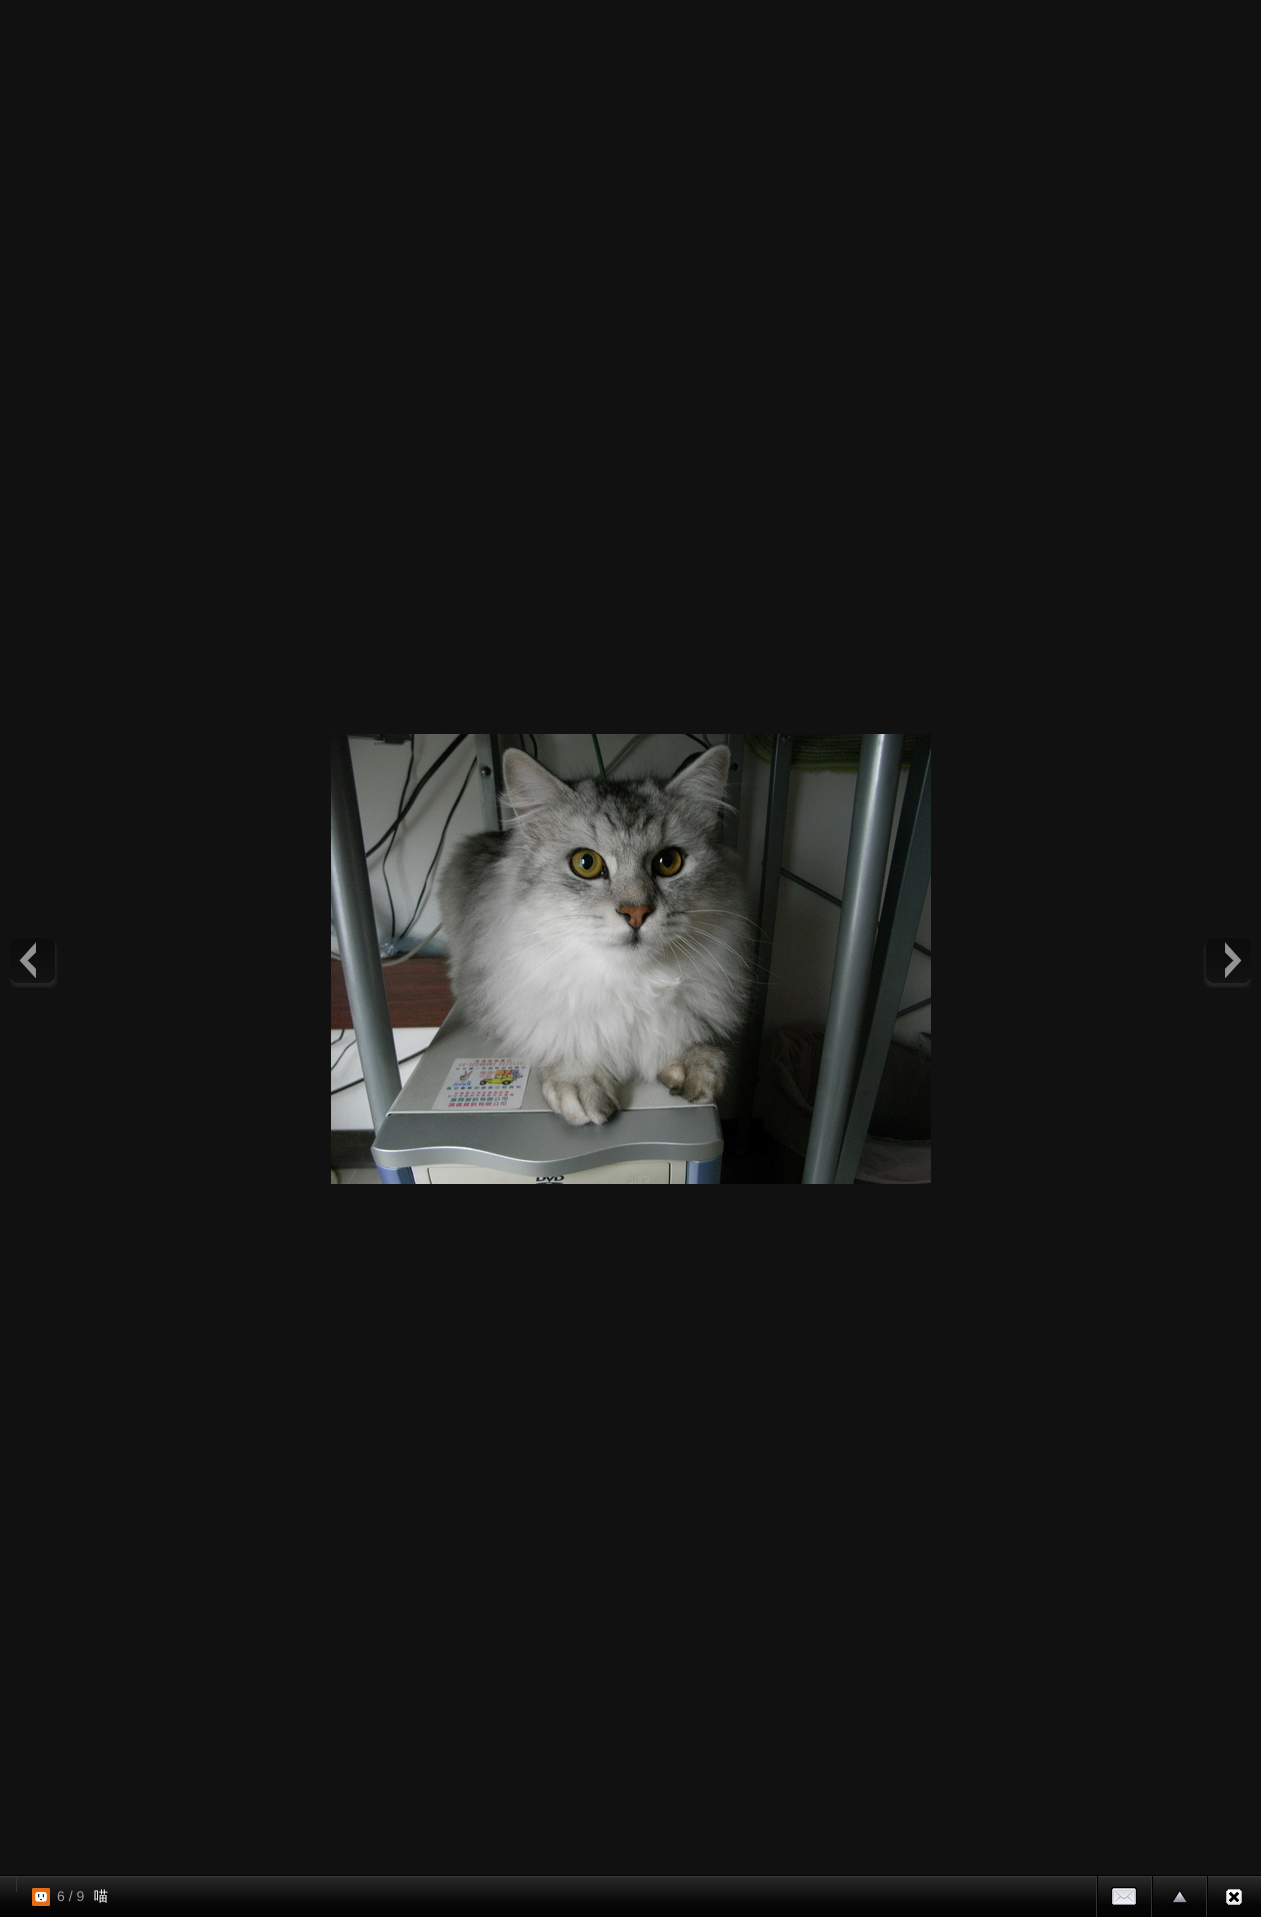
<svg xmlns="http://www.w3.org/2000/svg" width="1261" height="1917">
	<rect width="100%" height="100%" fill="#111111" />
	<image x="10" y="938" width="48" height="50" href="assets/img1.png" />
	<image x="331" y="734" width="600" height="450" href="assets/img2.png" />
	<image x="1203" y="938" width="48" height="50" href="assets/img3.png" />
	<image x="0" y="1875" width="1261" height="42" href="assets/img4.png" />
	<rect x="16" y="1876" width="1" height="16" fill="#333333" />
	<image x="32" y="1888" width="18" height="18" href="assets/img5.png" />
	<text x="57" y="1901" font-family="Liberation Sans" font-size="14" fill="#999999">6 / 9</text>
	<text x="94" y="1901" font-family="WenQuanYi Zen Hei" font-size="14" font-weight="500" fill="#FFFFFF">喵</text>
	<rect x="1096" y="1876" width="1" height="41" fill="#333333" />
	<image x="1097" y="1876" width="40" height="36" href="assets/img6.png" />
	<rect x="1151" y="1876" width="1" height="41" fill="#333333" />
	<image x="1152" y="1876" width="35" height="36" href="assets/img7.png" />
	<rect x="1206" y="1876" width="1" height="41" fill="#333333" />
	<image x="1207" y="1876" width="35" height="36" href="assets/img8.png" />
</svg>
